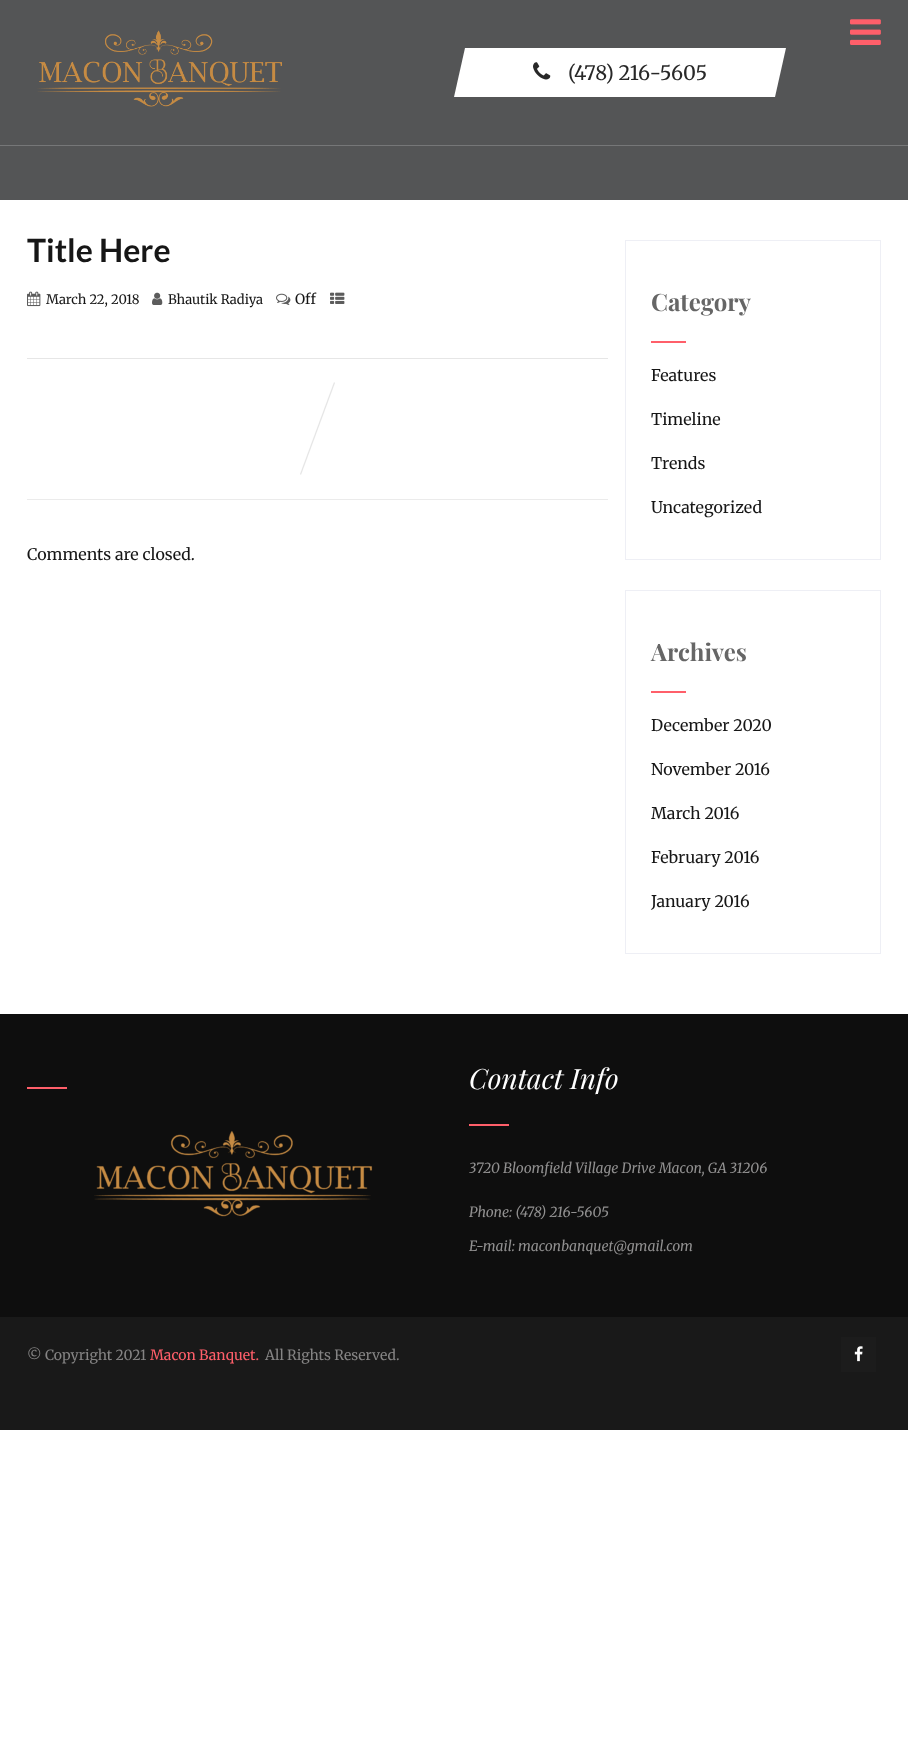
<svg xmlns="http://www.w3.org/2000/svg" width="908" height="1737">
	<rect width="100%" height="100%" fill="#FFFFFF" />
	<rect x="0" y="0" width="908" height="200" fill="#545556" />
	<rect x="0" y="145" width="908" height="1" fill="#767778" />
	<image x="37" y="30" width="245" height="77" href="assets/img1.png" />
	<path d="M465 48H786L775 97H454Z" fill="#FFFFFF" />
	<image x="533" y="62" width="18" height="18" href="assets/img2.png" />
	<text x="568" y="80" font-family="Merriweather" font-size="20" fill="#282828">(478) 216-5605</text>
	<image x="850" y="19" width="31" height="26" href="assets/img3.png" />
	<text x="27" y="262" font-family="Lato" font-size="32" font-weight="700" fill="#161616">Title Here</text>
	<image x="27" y="291" width="14" height="16" href="assets/img4.png" />
	<text x="46" y="304" font-family="Merriweather" font-size="13" fill="#161616">March 22, 2018</text>
	<image x="152" y="292" width="11" height="13" href="assets/img5.png" />
	<text x="168" y="304" font-family="Merriweather" font-size="13" fill="#161616">Bhautik Radiya</text>
	<image x="276" y="293" width="15" height="12" href="assets/img6.png" />
	<text x="295" y="304" font-family="Merriweather" font-size="14" fill="#161616">Off</text>
	<image x="330" y="292" width="15" height="12" href="assets/img7.png" />
	<rect x="27" y="358" width="581" height="1" fill="#E6E6E6" />
	<rect x="27" y="499" width="581" height="1" fill="#EBEBEB" />
	<path d="M334 382L335 383L301 475L300 474Z" fill="#E6E6E6" />
	<text x="27" y="560" font-family="Merriweather" font-size="16" fill="#161616">Comments are closed.</text>
	<rect x="625.5" y="240.5" width="255" height="319" fill="none" stroke="#EEEFF5" />
	<text x="651" y="311" font-family="Playfair Display" font-size="24" font-weight="700" fill="#666666">Category</text>
	<rect x="651" y="341" width="35" height="2" fill="#FF5F6A" />
	<g font-family="Merriweather" font-size="16" fill="#161616">
		<text x="651" y="381">Features</text>
		<text x="651" y="425">Timeline</text>
		<text x="651" y="469">Trends</text>
		<text x="651" y="513">Uncategorized</text>
	</g>
	<rect x="625.5" y="590.5" width="255" height="363" fill="none" stroke="#EEEFF5" />
	<text x="651" y="661" font-family="Playfair Display" font-size="24" font-weight="700" fill="#666666">Archives</text>
	<rect x="651" y="691" width="35" height="2" fill="#FF5F6A" />
	<g font-family="Merriweather" font-size="16" fill="#161616">
		<text x="651" y="731">December 2020</text>
		<text x="651" y="775">November 2016</text>
		<text x="651" y="819">March 2016</text>
		<text x="651" y="863">February 2016</text>
		<text x="651" y="907">January 2016</text>
	</g>
	<rect x="0" y="1014" width="908" height="303" fill="#0E0E0E" />
	<rect x="27" y="1087" width="40" height="2" fill="#FF5F6A" />
	<image x="94" y="1130" width="279" height="87" href="assets/img8.png" />
	<text x="469" y="1089" font-family="Playfair Display" font-size="28" font-style="italic" fill="#FFFFFF">Contact Info</text>
	<rect x="469" y="1124" width="40" height="2" fill="#FF5F6A" />
	<g font-family="Merriweather" font-size="14" font-weight="300" font-style="italic" fill="#919090">
		<text x="469" y="1173">3720 Bloomfield Village Drive Macon, GA 31206</text>
		<text x="469" y="1217">Phone: (478) 216-5605</text>
		<text x="469" y="1251">E-mail: maconbanquet@gmail.com</text>
	</g>
	<rect x="0" y="1317" width="908" height="113" fill="#191919" />
	<text x="27" y="1360" font-family="Merriweather" font-size="14" fill="#858484">© Copyright 2021</text>
	<text x="150" y="1360" font-family="Merriweather" font-size="14" fill="#FF5F6A">Macon Banquet.</text>
	<text x="265" y="1360" font-family="Merriweather" font-size="14" fill="#858484">All Rights Reserved.</text>
	<rect x="841" y="1337" width="35" height="35" fill="#1C1C1C" />
	<image x="854" y="1346" width="9" height="16" href="assets/img9.png" />
</svg>
